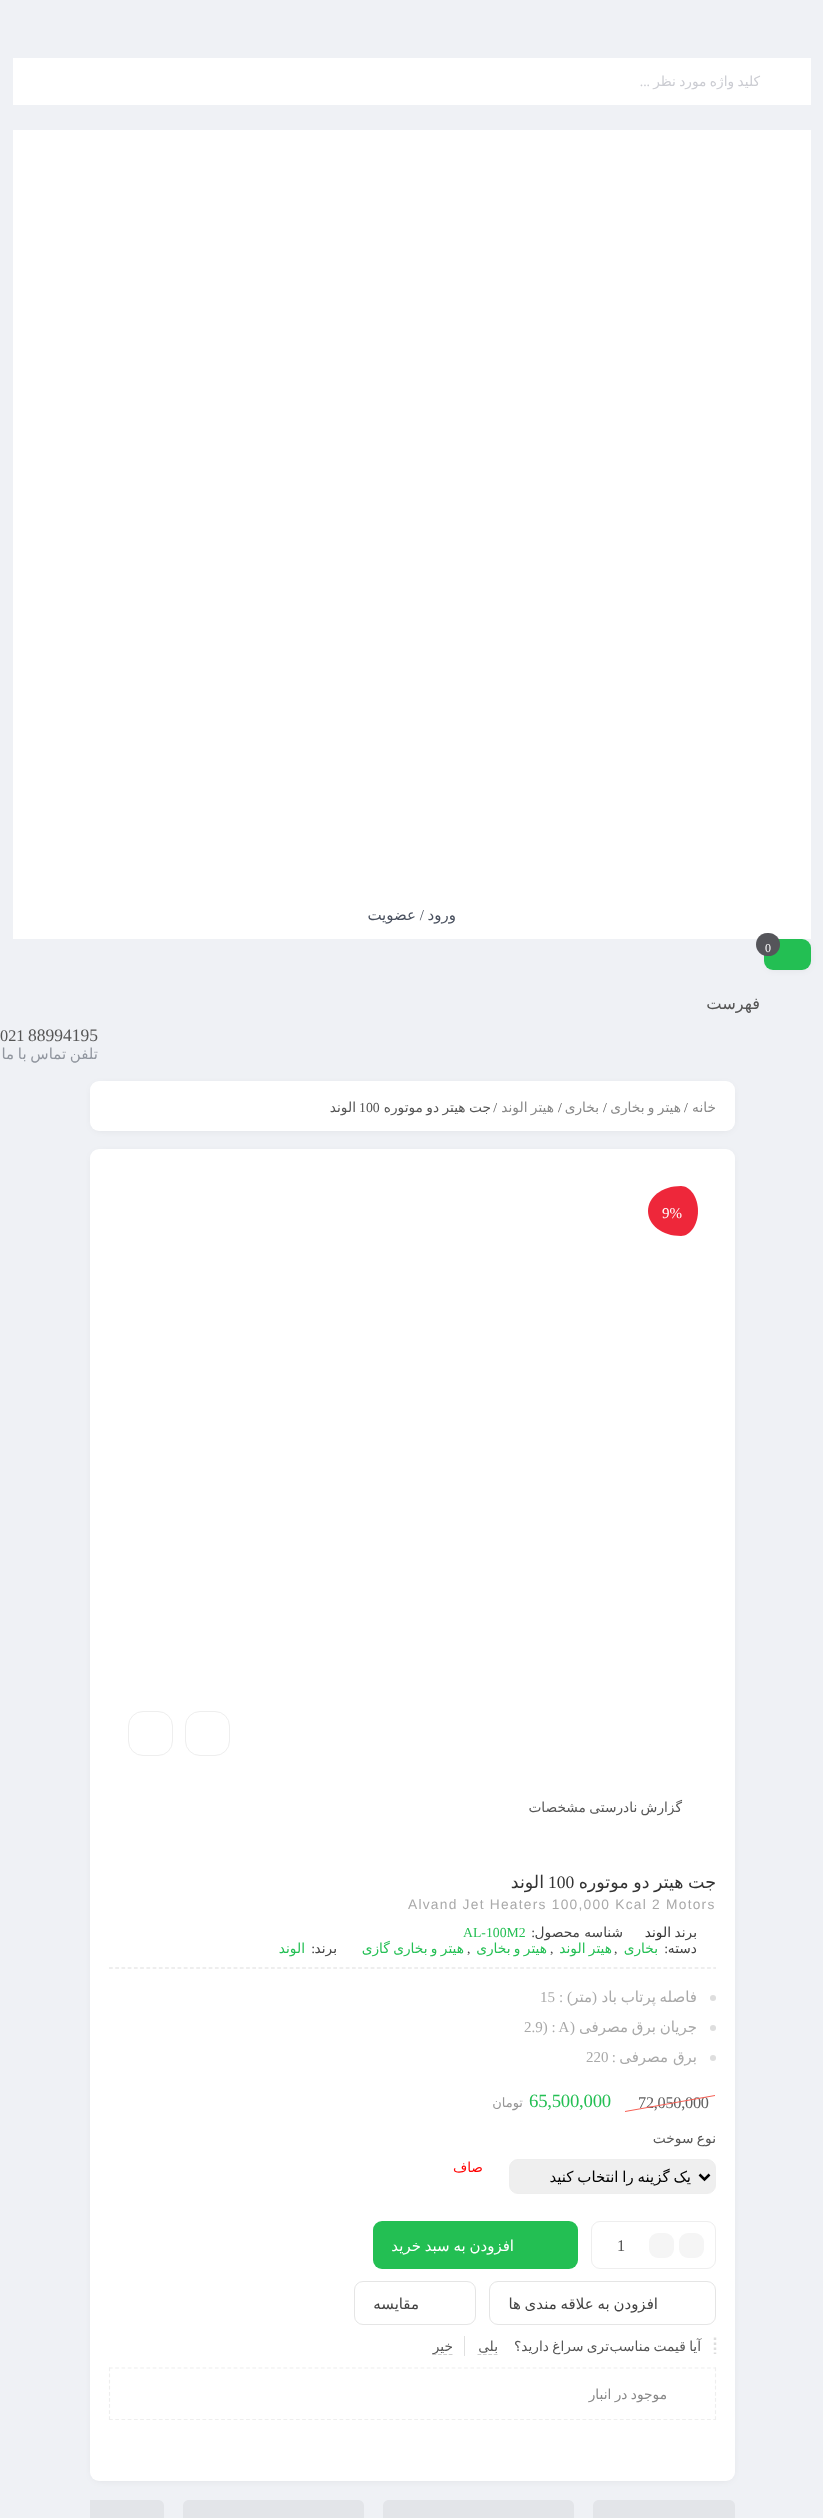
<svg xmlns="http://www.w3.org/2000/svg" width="823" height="2518">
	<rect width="100%" height="100%" fill="#EFF1F5" />
	<rect x="13" y="58" width="798" height="47" fill="#FFFFFF" />
	<text x="760" y="86" word-spacing="-1" font-family="DejaVu Sans" font-size="13.75" direction="rtl" fill="#CBCCD2">کلید واژه مورد نظر</text>
	<text x="650" y="86" font-family="Liberation Serif" font-size="13.75" direction="rtl" fill="#CBCCD2">...</text>
	<rect x="13" y="130" width="798" height="809" fill="#FFFFFF" />
	<text x="456" y="920" font-family="DejaVu Sans" font-size="15" direction="rtl" fill="#4A515F">ورود</text>
	<text x="424" y="920" font-family="Liberation Serif" font-size="15" direction="rtl" fill="#4A515F">/</text>
	<text x="416" y="920" font-family="DejaVu Sans" font-size="15" direction="rtl" fill="#4A515F">عضویت</text>
	<rect x="768" y="944" width="40" height="24" rx="5" fill="#000000" fill-opacity="0.1" filter="blur(4.5px)" />
	<rect x="764" y="939" width="47" height="31" rx="9" fill="#23BF53" />
	<rect x="756" y="933" width="24" height="23" rx="11.5" fill="#55555A" />
	<text x="765" y="952" font-family="Liberation Serif" font-size="12" fill="#FFFFFF">0</text>
	<text x="760" y="1009" font-family="DejaVu Sans" font-size="16.25" direction="rtl" fill="#555555">فهرست</text>
	<text x="28" y="1041" font-family="Liberation Serif" font-size="17.5" fill="#555555">88994195</text>
	<text x="0" y="1041" font-family="Liberation Serif" font-size="16.25" fill="#555555">021</text>
	<text x="98" y="1059" word-spacing="-1" font-family="DejaVu Sans" font-size="15" direction="rtl" fill="#91969F">تلفن تماس با ما</text>
	<rect x="94" y="1086" width="637" height="43" rx="5" fill="#000000" fill-opacity="0.1" filter="blur(4.5px)" />
	<rect x="90" y="1081" width="645" height="50" rx="9" fill="#FFFFFF" />
	<text x="716" y="1112" font-family="DejaVu Sans" font-size="13.75" direction="rtl" fill="#888888">خانه</text>
	<text x="684" y="1112" font-family="Liberation Serif" font-size="13.75" fill="#555555">/</text>
	<text x="681" y="1112" word-spacing="-1" font-family="DejaVu Sans" font-size="13.75" direction="rtl" fill="#888888">هیتر و بخاری</text>
	<text x="603" y="1112" font-family="Liberation Serif" font-size="13.75" fill="#555555">/</text>
	<text x="599" y="1112" font-family="DejaVu Sans" font-size="13.75" direction="rtl" fill="#888888">بخاری</text>
	<text x="558" y="1112" font-family="Liberation Serif" font-size="13.75" fill="#555555">/</text>
	<text x="554" y="1112" word-spacing="-1" font-family="DejaVu Sans" font-size="13.75" direction="rtl" fill="#888888">هیتر الوند</text>
	<text x="497" y="1112" font-family="Liberation Serif" font-size="13.75" direction="rtl" fill="#555555">/</text>
	<text x="491" y="1112" word-spacing="-1" font-family="DejaVu Sans" font-size="13.75" direction="rtl" fill="#555555">جت هیتر دو موتوره</text>
	<text x="359" y="1112" font-family="Liberation Serif" font-size="13.75" fill="#555555">100</text>
	<text x="356" y="1112" font-family="DejaVu Sans" font-size="13.75" direction="rtl" fill="#555555">الوند</text>
	<rect x="94" y="1154" width="637" height="1325" rx="5" fill="#000000" fill-opacity="0.1" filter="blur(4.5px)" />
	<rect x="90" y="1149" width="645" height="1332" rx="9" fill="#FFFFFF" />
	<path d="M681 1186C690 1186 698 1197 698 1211C698 1225 690 1236 681 1236C662 1236 648 1225 648 1211C648 1197 662 1186 681 1186Z" fill="#EE273A" />
	<text x="662" y="1218" font-family="Liberation Serif" font-size="15" fill="#FFFFFF">9%</text>
	<rect x="185.5" y="1711.5" width="44" height="44" rx="14.5" fill="none" stroke="#EEEEEE" />
	<rect x="128.5" y="1711.5" width="44" height="44" rx="14.5" fill="none" stroke="#EEEEEE" />
	<text x="682" y="1812" word-spacing="-1" font-family="DejaVu Sans" font-size="13.75" direction="rtl" fill="#555555">گزارش نادرستی مشخصات</text>
	<text x="716" y="1888" word-spacing="-1" font-family="DejaVu Sans" font-size="17.5" direction="rtl" fill="#333333">جت هیتر دو موتوره</text>
	<text x="548" y="1888" font-family="Liberation Serif" font-size="17.5" fill="#333333">100</text>
	<text x="544" y="1888" font-family="DejaVu Sans" font-size="17.5" direction="rtl" fill="#333333">الوند</text>
	<text x="408" y="1909" font-family="Liberation Sans" font-size="13.75" letter-spacing="1.25" fill="#A9A9A9">Alvand Jet Heaters 100,000 Kcal 2 Motors</text>
	<text x="697" y="1937" font-family="DejaVu Sans" font-size="13.75" direction="rtl" fill="#434343">برند</text>
	<text x="671" y="1937" font-family="DejaVu Sans" font-size="13.75" direction="rtl" fill="#333333">الوند</text>
	<text x="623" y="1937" font-family="DejaVu Sans" font-size="13.75" direction="rtl" fill="#434343">شناسه محصول</text>
	<text x="535" y="1937" font-family="Liberation Serif" font-size="13.75" direction="rtl" fill="#434343">:</text>
	<text x="463" y="1937" font-family="Liberation Serif" font-size="13.75" fill="#23BF53">AL-100M2</text>
	<text x="697" y="1953" font-family="DejaVu Sans" font-size="13.75" direction="rtl" fill="#434343">دسته</text>
	<text x="668" y="1953" font-family="Liberation Serif" font-size="13.75" direction="rtl" fill="#434343">:</text>
	<text x="658" y="1953" font-family="DejaVu Sans" font-size="13.75" direction="rtl" fill="#23BF53">بخاری</text>
	<text x="614" y="1953" font-family="Liberation Serif" font-size="13.75" fill="#434343">,</text>
	<text x="612" y="1953" word-spacing="-1" font-family="DejaVu Sans" font-size="13.75" direction="rtl" fill="#23BF53">هیتر الوند</text>
	<text x="550" y="1953" font-family="Liberation Serif" font-size="13.75" fill="#434343">,</text>
	<text x="547" y="1953" word-spacing="-1" font-family="DejaVu Sans" font-size="13.75" direction="rtl" fill="#23BF53">هیتر و بخاری</text>
	<text x="467" y="1953" font-family="Liberation Serif" font-size="13.75" fill="#434343">,</text>
	<text x="464" y="1953" word-spacing="-1" font-family="DejaVu Sans" font-size="13.75" direction="rtl" fill="#23BF53">هیتر و بخاری گازی</text>
	<text x="337" y="1953" font-family="DejaVu Sans" font-size="13.75" direction="rtl" fill="#434343">برند</text>
	<text x="315" y="1953" font-family="Liberation Serif" font-size="13.75" direction="rtl" fill="#434343">:</text>
	<text x="305" y="1953" font-family="DejaVu Sans" font-size="13.75" direction="rtl" fill="#23BF53">الوند</text>
	<path d="M109 1968H716" fill="none" stroke="#DDDDDD" stroke-width="1.2" stroke-dasharray="3.75 2.48" />
	<circle cx="713" cy="1998" r="3" fill="#DEDEDE" />
	<g font-family="DejaVu Sans" font-size="15" direction="rtl" fill="#A9A9A9">
		<text x="697" y="2002">فاصله</text>
		<text x="656" y="2002">پرتاب</text>
		<text x="617" y="2002">باد</text>
	</g>
	<g font-family="Liberation Serif" font-size="15" direction="rtl" fill="#A9A9A9">
		<text x="597" y="2002">(</text>
		<text x="572" y="2002">) :</text>
	</g>
	<text x="592" y="2002" font-family="DejaVu Sans" font-size="15" direction="rtl" fill="#A9A9A9">متر</text>
	<text x="540" y="2002" font-family="Liberation Serif" font-size="15" fill="#A9A9A9">15</text>
	<circle cx="713" cy="2028" r="3" fill="#DEDEDE" />
	<text x="697" y="2032" word-spacing="-1" font-family="DejaVu Sans" font-size="15" direction="rtl" fill="#A9A9A9">جریان برق مصرفی</text>
	<text x="524" y="2032" font-family="Liberation Serif" font-size="15" fill="#A9A9A9">2.9) : A</text>
	<text x="575" y="2032" font-family="Liberation Serif" font-size="15" direction="rtl" fill="#A9A9A9">(</text>
	<circle cx="713" cy="2058" r="3" fill="#DEDEDE" />
	<text x="697" y="2062" font-family="DejaVu Sans" font-size="15" direction="rtl" fill="#A9A9A9">برق مصرفی</text>
	<text x="616" y="2062" font-family="Liberation Serif" font-size="15" direction="rtl" fill="#A9A9A9">:</text>
	<text x="586" y="2062" font-family="Liberation Serif" font-size="15" fill="#A9A9A9">220</text>
	<text x="638" y="2108" font-family="Liberation Serif" font-size="16.25" letter-spacing="-0.25" fill="#606060">72,050,000</text>
	<path d="M625 2111L715 2095V2096L625 2112Z" fill="#F65F54" />
	<text x="529" y="2107" font-family="Liberation Serif" font-size="18.75" letter-spacing="-0.25" fill="#23BF53">65,500,000</text>
	<text x="523" y="2107" font-family="DejaVu Sans" font-size="13" letter-spacing="-0.25" direction="rtl" fill="#969696">تومان</text>
	<text x="716" y="2143" word-spacing="-1" font-family="DejaVu Sans" font-size="13.75" direction="rtl" fill="#555555">نوع سوخت</text>
	<rect x="509.5" y="2159.5" width="206" height="34" rx="8.5" fill="#EFEFEF" stroke="#EEEEEE" />
	<path d="M699.5 2174.5L704.5 2179.5L709.5 2174.5" fill="none" stroke="#000000" stroke-width="2.5" />
	<text x="691" y="2182" word-spacing="-1" font-family="DejaVu Sans" font-size="15" direction="rtl" fill="#000000">یک گزینه را انتخاب کنید</text>
	<text x="483" y="2172" font-family="DejaVu Sans" font-size="13.75" direction="rtl" fill="#FF0000">صاف</text>
	<rect x="591.5" y="2221.5" width="124" height="47" rx="8.5" fill="none" stroke="#EEEEEE" />
	<rect x="679" y="2233" width="25" height="25" rx="9" fill="#F5F5F5" />
	<rect x="649" y="2233" width="25" height="25" rx="9" fill="#F5F5F5" />
	<text x="617" y="2251" font-family="Liberation Serif" font-size="16.25" fill="#555555">1</text>
	<rect x="373" y="2221" width="205" height="48" rx="9" fill="#23BF53" />
	<text x="514" y="2251" word-spacing="-1" font-family="DejaVu Sans" font-size="15" direction="rtl" fill="#FFFFFF">افزودن به سبد خرید</text>
	<rect x="489.5" y="2281.5" width="226" height="43" rx="8.5" fill="none" stroke="#E5E5E5" />
	<text x="658" y="2309" word-spacing="-1" font-family="DejaVu Sans" font-size="15" direction="rtl" fill="#434343">افزودن به علاقه مندی ها</text>
	<rect x="354.5" y="2281.5" width="121" height="43" rx="8.5" fill="none" stroke="#E5E5E5" />
	<text x="419" y="2309" font-family="DejaVu Sans" font-size="15" direction="rtl" fill="#434343">مقایسه</text>
	<path d="M715 2337.5V2340M715 2342.5V2345M715 2347.5V2350M715 2352.5V2354" fill="none" stroke="#DDDDDD" stroke-width="2.5" />
	<g font-family="DejaVu Sans" font-size="13.75" direction="rtl" fill="#555555">
		<text x="701" y="2351" word-spacing="-1">آیا قیمت مناسب</text>
		<text x="609" y="2351" word-spacing="-1">تری سراغ دارید؟</text>
	</g>
	<path d="M477.5 2354.5H497.5" fill="none" stroke="#CCCCCC" stroke-width="1.2" stroke-dasharray="3.75 1.66" />
	<text x="498" y="2351" font-family="DejaVu Sans" font-size="13.75" direction="rtl" fill="#555555">بلی</text>
	<rect x="464" y="2336" width="1" height="20" fill="#E0E0E0" />
	<path d="M432.5 2354.5H452.5" fill="none" stroke="#CCCCCC" stroke-width="1.2" stroke-dasharray="3.75 1.66" />
	<text x="453" y="2351" font-family="DejaVu Sans" font-size="13.75" direction="rtl" fill="#555555">خیر</text>
	<path d="M109 2368H716" fill="none" stroke="#EEEEEE" stroke-width="1.2" stroke-dasharray="3.75 2.48" />
	<path d="M715.5 2367.5V2420" fill="none" stroke="#EEEEEE" stroke-width="1.2" stroke-dasharray="3.75 2.35" />
	<path d="M109 2419.5H716" fill="none" stroke="#EEEEEE" stroke-width="1.2" stroke-dasharray="3.75 2.48" />
	<path d="M109.5 2367.5V2420" fill="none" stroke="#EEEEEE" stroke-width="1.2" stroke-dasharray="3.75 2.35" />
	<text x="667" y="2399" word-spacing="-1" font-family="DejaVu Sans" font-size="13.75" direction="rtl" fill="#888888">موجود در انبار</text>
	<path d="M599 2500H729C732.5 2500 735 2502.5 735 2506V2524H593V2506C593 2502.5 595.5 2500 599 2500Z" fill="#E3E5E9" />
	<path d="M389 2500H568C571.5 2500 574 2502.5 574 2506V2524H383V2506C383 2502.5 385.5 2500 389 2500Z" fill="#E3E5E9" />
	<path d="M189 2500H358C361.5 2500 364 2502.5 364 2506V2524H183V2506C183 2502.5 185.5 2500 189 2500Z" fill="#E3E5E9" />
	<path d="M90 2500H158C161.5 2500 164 2502.5 164 2506V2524H90Z" fill="#E3E5E9" />
</svg>
